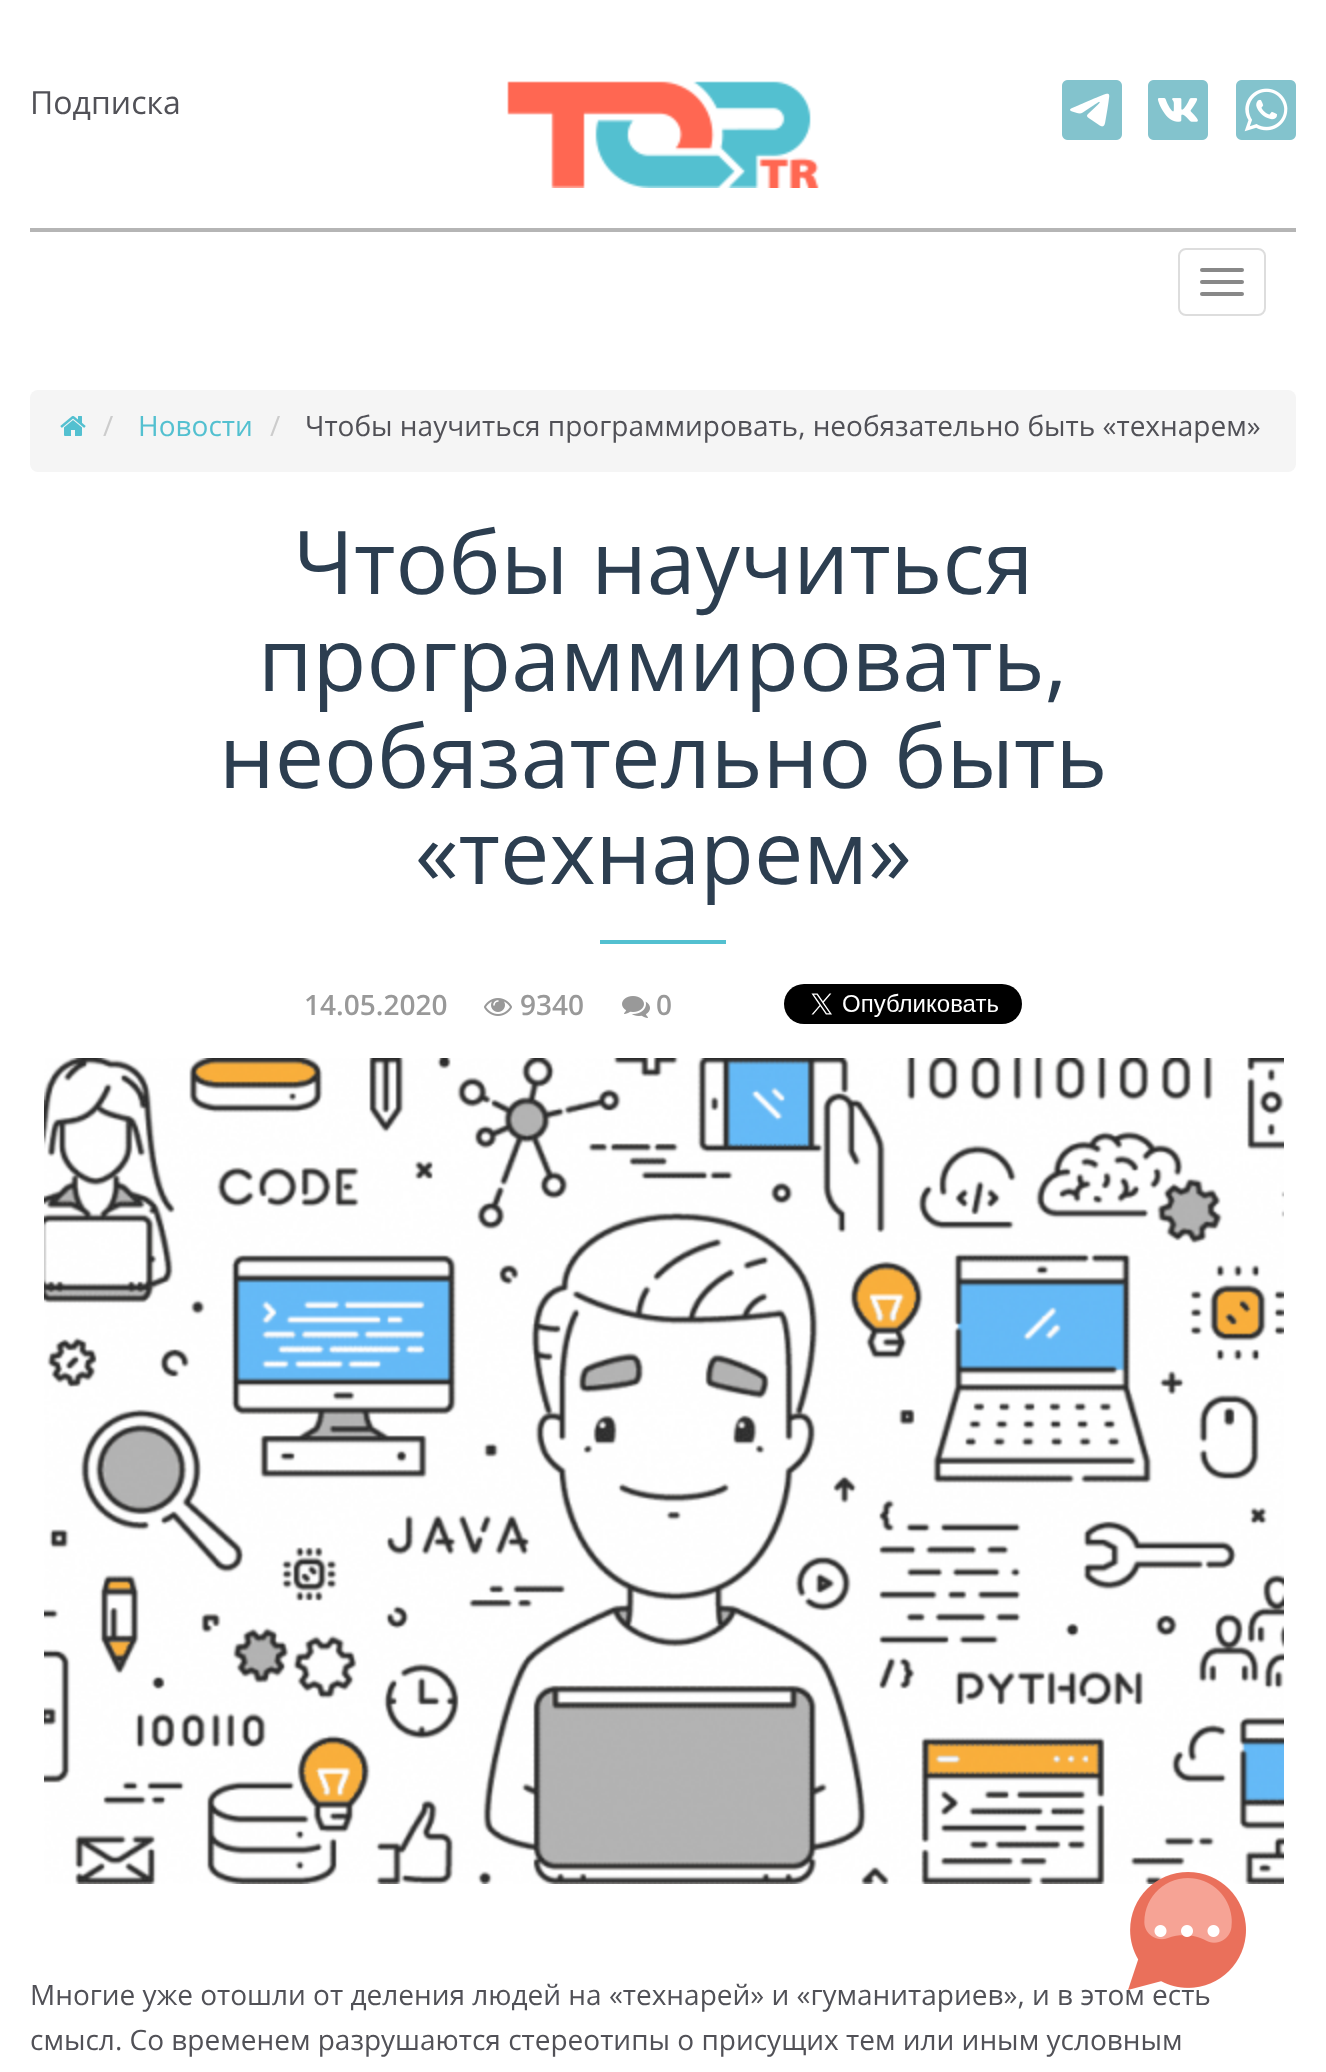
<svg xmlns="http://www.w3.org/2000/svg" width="1326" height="2072">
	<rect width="100%" height="100%" fill="#FFFFFF" />
	<text x="30" y="114" font-family="Open Sans" font-size="32" fill="#515157">Подписка</text>
	<image x="507" y="81" width="312" height="107" href="assets/img1.png" />
	<image x="1062" y="80" width="60" height="60" href="assets/img2.png" />
	<image x="1148" y="80" width="60" height="60" href="assets/img3.png" />
	<image x="1236" y="80" width="60" height="60" href="assets/img4.png" />
	<rect x="30" y="228" width="1266" height="4" fill="#B5B5B5" />
	<rect x="1179" y="249" width="86" height="66" rx="7" fill="none" stroke="#DDDDDD" stroke-width="2" />
	<rect x="1200" y="268" width="44" height="4" rx="2" fill="#888888" />
	<rect x="1200" y="280" width="44" height="4" rx="2" fill="#888888" />
	<rect x="1200" y="292" width="44" height="4" rx="2" fill="#888888" />
	<rect x="30" y="390" width="1266" height="82" rx="8" fill="#F5F5F5" />
	<image x="60" y="416" width="26" height="20" href="assets/img5.png" />
	<text x="103" y="436" font-family="Open Sans" font-size="28" fill="#CCCCCC">/</text>
	<text x="138" y="436" font-family="Open Sans" font-size="28" fill="#53C0D0">Новости</text>
	<text x="270" y="436" font-family="Open Sans" font-size="28" fill="#CCCCCC">/</text>
	<text x="305" y="436" font-family="Open Sans" font-size="28" fill="#515157">Чтобы научиться программировать, необязательно быть «технарем»</text>
	<g font-family="Open Sans" font-size="88" fill="#2C3E50">
		<text x="293" y="594">Чтобы научиться</text>
		<text x="258" y="691">программировать,</text>
		<text x="219" y="788">необязательно быть</text>
		<text x="415" y="884">«технарем»</text>
	</g>
	<rect x="600" y="940" width="126" height="4" fill="#53C0D0" />
	<text x="304" y="1015" font-family="Open Sans" font-size="28" font-weight="600" fill="#999999">14.05.2020</text>
	<image x="484" y="998" width="28" height="18" href="assets/img6.png" />
	<text x="520" y="1015" font-family="Open Sans" font-size="28" font-weight="600" fill="#999999">9340</text>
	<image x="622" y="996" width="28" height="22" href="assets/img7.png" />
	<text x="656" y="1015" font-family="Open Sans" font-size="28" font-weight="600" fill="#999999">0</text>
	<image x="784" y="984" width="238" height="40" href="assets/img8.png" />
	<image x="44" y="1058" width="1240" height="826" href="assets/img9.png" />
	<g font-family="Open Sans" font-size="28" fill="#515157">
		<text x="30" y="2005">Многие уже отошли от деления людей на «технарей» и «гуманитариев», и в этом есть</text>
		<text x="30" y="2050">смысл. Со временем разрушаются стереотипы о присущих тем или иным условным</text>
	</g>
	<image x="1128" y="1872" width="118" height="118" href="assets/img10.png" />
</svg>
